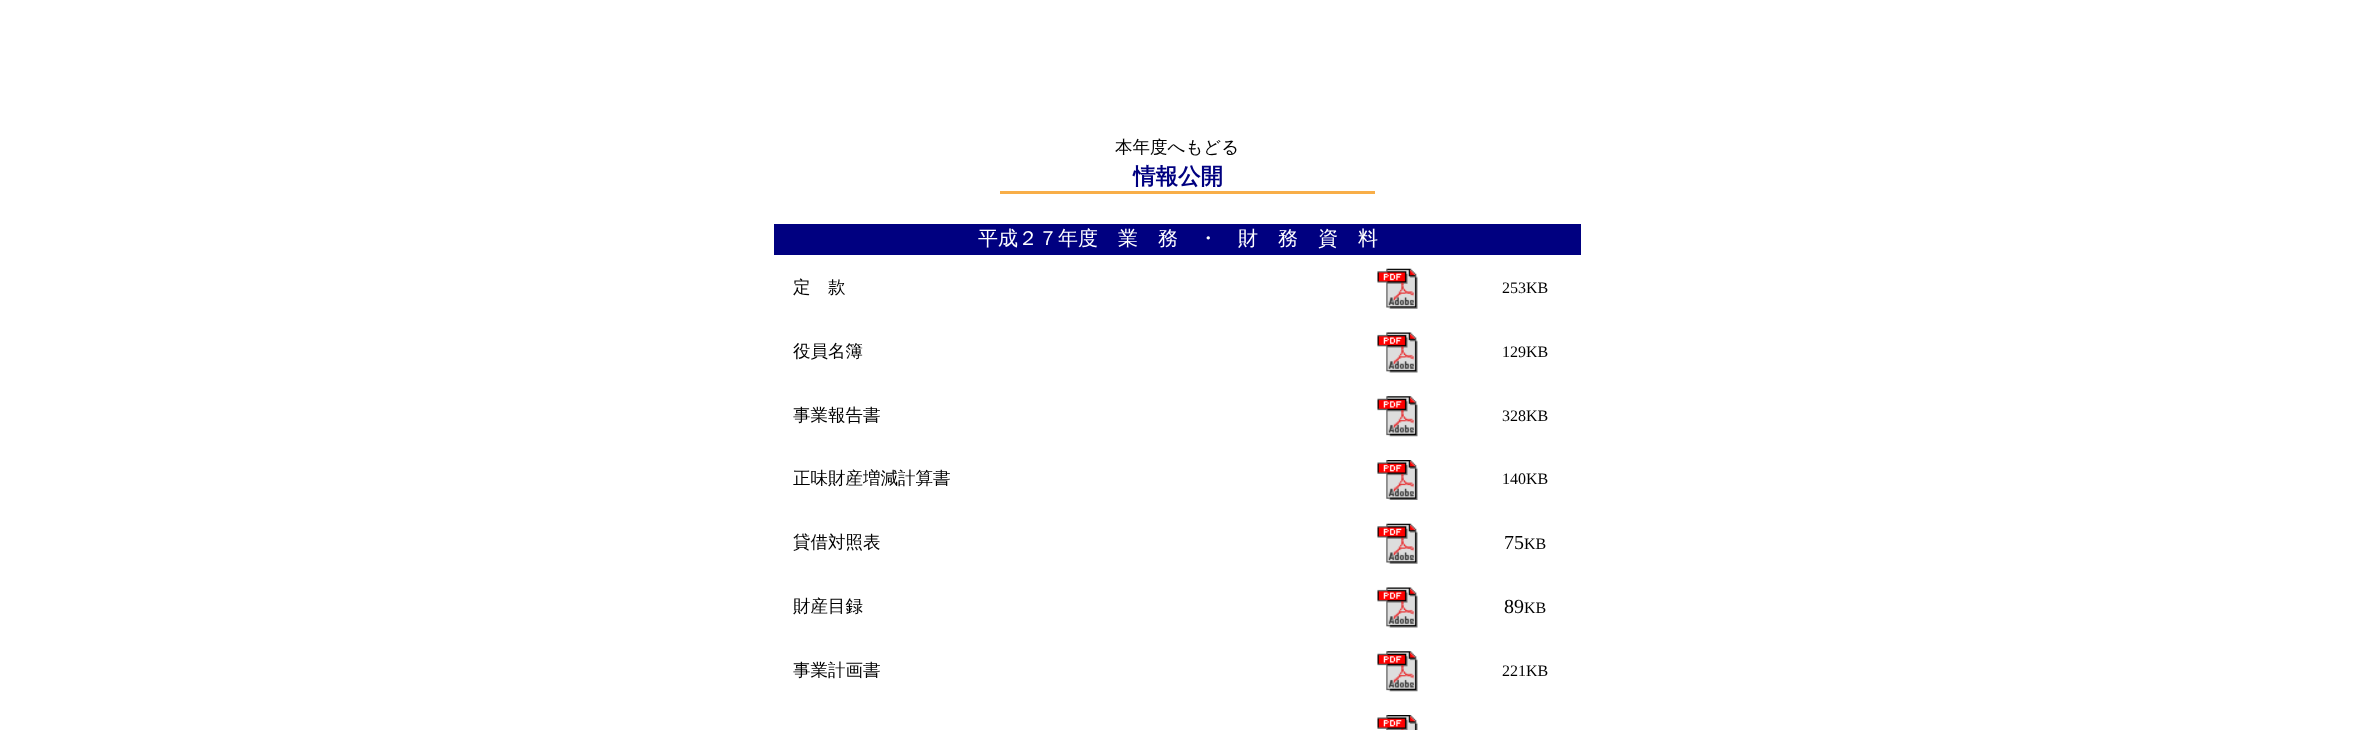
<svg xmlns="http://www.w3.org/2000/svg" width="2355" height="730">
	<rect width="100%" height="100%" fill="#FFFFFF" />
	<text x="1115" y="153" font-family="WenQuanYi Zen Hei" font-size="17.5" font-weight="500" fill="#000000">本年度へもどる</text>
	<text x="1133" y="184" font-family="WenQuanYi Zen Hei" font-size="22.5" font-weight="700" fill="#000080">情報公開</text>
	<rect x="1000" y="191" width="375" height="3" fill="#F8AE48" />
	<rect x="774" y="224" width="807" height="31" fill="#000080" />
	<text x="978" y="245" font-family="WenQuanYi Zen Hei" font-size="20" font-weight="500" fill="#FFFFFF">平成２７年度　業　務　・　財　務　資　料</text>
	<text x="793" y="293" font-family="WenQuanYi Zen Hei" font-size="17.5" font-weight="500" fill="#000000">定　款</text>
	<image x="1377" y="268" width="41" height="41" href="assets/img1.png" />
	<text x="1502" y="293" font-family="Liberation Serif" font-size="16" fill="#000000">253KB</text>
	<text x="793" y="357" font-family="WenQuanYi Zen Hei" font-size="17.5" font-weight="500" fill="#000000">役員名簿</text>
	<image x="1377" y="332" width="41" height="41" href="assets/img2.png" />
	<text x="1502" y="357" font-family="Liberation Serif" font-size="16" fill="#000000">129KB</text>
	<text x="793" y="421" font-family="WenQuanYi Zen Hei" font-size="17.5" font-weight="500" fill="#000000">事業報告書</text>
	<image x="1377" y="396" width="41" height="41" href="assets/img3.png" />
	<text x="1502" y="421" font-family="Liberation Serif" font-size="16" fill="#000000">328KB</text>
	<text x="793" y="484" font-family="WenQuanYi Zen Hei" font-size="17.5" font-weight="500" fill="#000000">正味財産増減計算書</text>
	<image x="1377" y="460" width="41" height="40" href="assets/img4.png" />
	<text x="1502" y="484" font-family="Liberation Serif" font-size="16" fill="#000000">140KB</text>
	<text x="793" y="548" font-family="WenQuanYi Zen Hei" font-size="17.5" font-weight="500" fill="#000000">貸借対照表</text>
	<image x="1377" y="523" width="41" height="41" href="assets/img1.png" />
	<text x="1504" y="549" font-family="Liberation Serif" font-size="20" fill="#000000">75</text>
	<text x="1524" y="549" font-family="Liberation Serif" font-size="16" fill="#000000">KB</text>
	<text x="793" y="612" font-family="WenQuanYi Zen Hei" font-size="17.5" font-weight="500" fill="#000000">財産目録</text>
	<image x="1377" y="587" width="41" height="41" href="assets/img5.png" />
	<text x="1504" y="613" font-family="Liberation Serif" font-size="20" fill="#000000">89</text>
	<text x="1524" y="613" font-family="Liberation Serif" font-size="16" fill="#000000">KB</text>
	<text x="793" y="676" font-family="WenQuanYi Zen Hei" font-size="17.5" font-weight="500" fill="#000000">事業計画書</text>
	<image x="1377" y="651" width="41" height="41" href="assets/img3.png" />
	<text x="1502" y="676" font-family="Liberation Serif" font-size="16" fill="#000000">221KB</text>
	<image x="1377" y="715" width="41" height="15" href="assets/img6.png" />
</svg>
